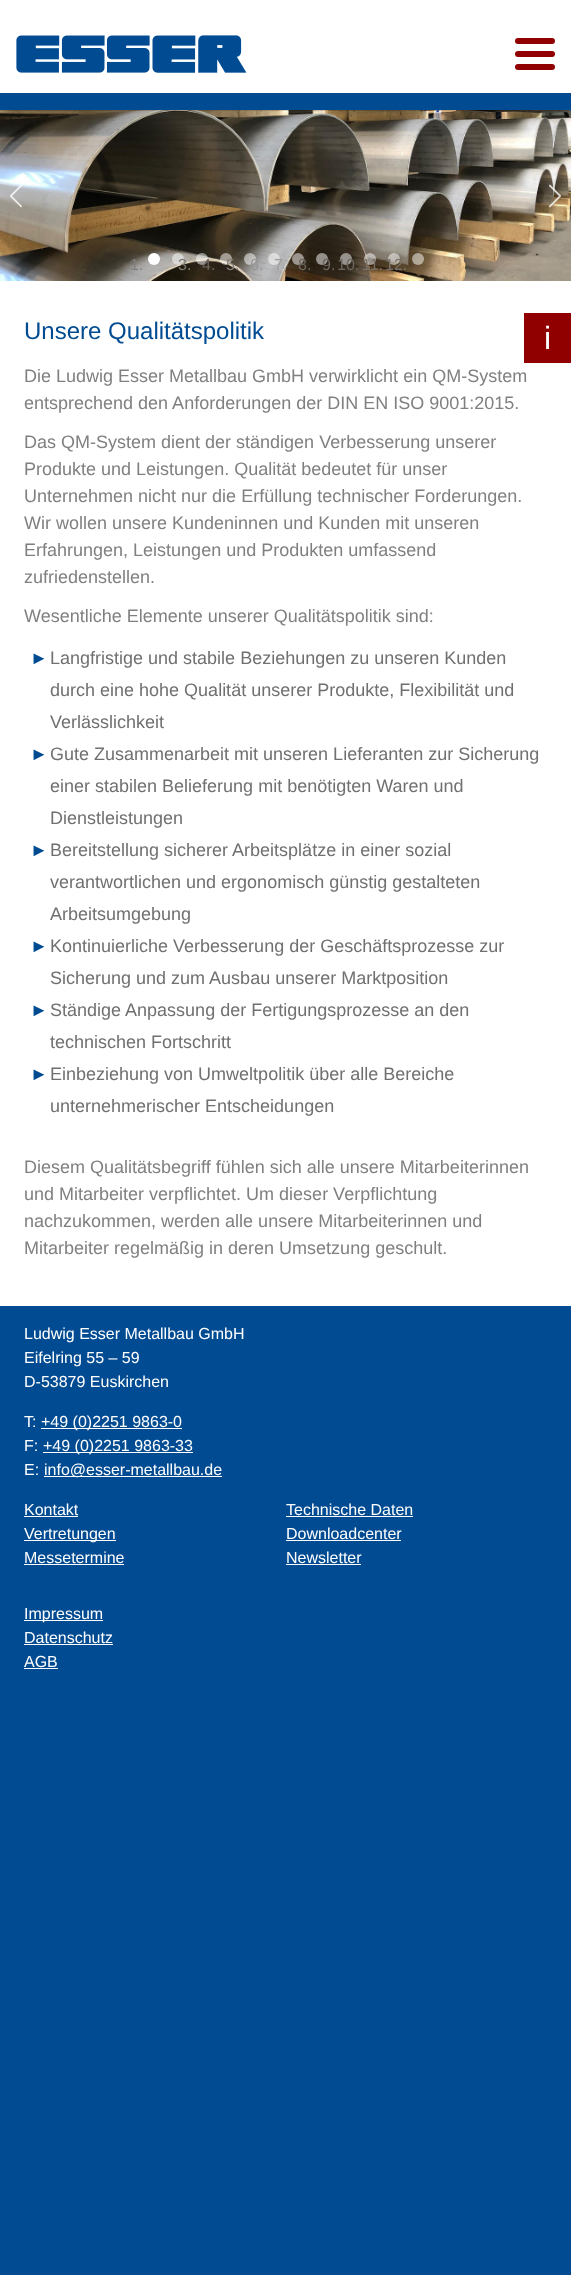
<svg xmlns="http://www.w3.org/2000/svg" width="571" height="2275">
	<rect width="100%" height="100%" fill="#004B91" />
	<image x="0" y="110" width="571" height="171" href="assets/img2.png" />
	<rect x="0" y="110" width="571" height="1" fill="#000000" fill-opacity="0.15" />
	<rect x="0" y="0" width="571" height="93" fill="#FFFFFF" />
	<image x="16" y="35" width="231" height="38" href="assets/img1.png" />
	<rect x="515" y="38" width="40" height="6" rx="3" fill="#910000" />
	<rect x="515" y="51" width="40" height="6" rx="3" fill="#910000" />
	<rect x="515" y="64" width="40" height="6" rx="3" fill="#910000" />
	<image x="10" y="185" width="12" height="23" href="assets/img3.png" />
	<image x="548" y="184" width="13" height="24" href="assets/img4.png" />
	<circle cx="178" cy="259" r="6" fill="#FFFFFF" fill-opacity="0.5" />
	<circle cx="154" cy="259" r="6" fill="#FFFFFF" />
	<text x="130" y="270" font-family="Liberation Sans" font-size="16" fill="#808080">1.</text>
	<circle cx="202" cy="259" r="6" fill="#FFFFFF" fill-opacity="0.5" />
	<text x="178" y="270" font-family="Liberation Sans" font-size="16" fill="#7E7B76">3.</text>
	<circle cx="226" cy="259" r="6" fill="#FFFFFF" fill-opacity="0.5" />
	<text x="202" y="270" font-family="Liberation Sans" font-size="16" fill="#6B6761">4.</text>
	<circle cx="250" cy="259" r="6" fill="#FFFFFF" fill-opacity="0.5" />
	<text x="226" y="270" font-family="Liberation Sans" font-size="16" fill="#858079">5.</text>
	<circle cx="274" cy="259" r="6" fill="#FFFFFF" fill-opacity="0.5" />
	<text x="250" y="270" font-family="Liberation Sans" font-size="16" fill="#969696">6.</text>
	<circle cx="298" cy="259" r="6" fill="#FFFFFF" fill-opacity="0.5" />
	<text x="274" y="270" font-family="Liberation Sans" font-size="16" fill="#9F9E9E">7.</text>
	<circle cx="322" cy="259" r="6" fill="#FFFFFF" fill-opacity="0.5" />
	<text x="298" y="270" font-family="Liberation Sans" font-size="16" fill="#6B6761">8.</text>
	<circle cx="346" cy="259" r="6" fill="#FFFFFF" fill-opacity="0.5" />
	<text x="322" y="270" font-family="Liberation Sans" font-size="16" fill="#6B6761">9.</text>
	<circle cx="370" cy="259" r="6" fill="#FFFFFF" fill-opacity="0.5" />
	<text x="337" y="270" font-family="Liberation Sans" font-size="16" fill="#6B6761">10.</text>
	<circle cx="394" cy="259" r="6" fill="#FFFFFF" fill-opacity="0.5" />
	<text x="362" y="270" font-family="Liberation Sans" font-size="16" fill="#7A7269">11.</text>
	<circle cx="418" cy="259" r="6" fill="#FFFFFF" fill-opacity="0.5" />
	<text x="385" y="270" font-family="Liberation Sans" font-size="16" fill="#7A7269">12.</text>
	<rect x="0" y="281" width="571" height="1025" fill="#FFFFFF" />
	<text x="24" y="339" font-family="Liberation Sans" font-size="24" fill="#004B91">Unsere Qualitätspolitik</text>
	<g font-family="Liberation Sans" font-size="18" fill="#808080">
		<text x="24" y="382">Die Ludwig Esser Metallbau GmbH verwirklicht ein QM-System</text>
		<text x="24" y="409">entsprechend den Anforderungen der DIN EN ISO 9001:2015.</text>
		<text x="24" y="448">Das QM-System dient der ständigen Verbesserung unserer</text>
		<text x="24" y="475">Produkte und Leistungen. Qualität bedeutet für unser</text>
		<text x="24" y="502">Unternehmen nicht nur die Erfüllung technischer Forderungen.</text>
		<text x="24" y="529">Wir wollen unsere Kundeninnen und Kunden mit unseren</text>
		<text x="24" y="556">Erfahrungen, Leistungen und Produkten umfassend</text>
		<text x="24" y="583">zufriedenstellen.</text>
		<text x="24" y="622">Wesentliche Elemente unserer Qualitätspolitik sind:</text>
	</g>
	<text x="30" y="664" font-family="Liberation Sans" font-size="18" letter-spacing="-9" fill="#004B91">►</text>
	<g font-family="Liberation Sans" font-size="18" fill="#707070">
		<text x="50" y="664">Langfristige und stabile Beziehungen zu unseren Kunden</text>
		<text x="50" y="696">durch eine hohe Qualität unserer Produkte, Flexibilität und</text>
		<text x="50" y="728">Verlässlichkeit</text>
	</g>
	<text x="30" y="760" font-family="Liberation Sans" font-size="18" letter-spacing="-9" fill="#004B91">►</text>
	<g font-family="Liberation Sans" font-size="18" fill="#707070">
		<text x="50" y="760">Gute Zusammenarbeit mit unseren Lieferanten zur Sicherung</text>
		<text x="50" y="792">einer stabilen Belieferung mit benötigten Waren und</text>
		<text x="50" y="824">Dienstleistungen</text>
	</g>
	<text x="30" y="856" font-family="Liberation Sans" font-size="18" letter-spacing="-9" fill="#004B91">►</text>
	<g font-family="Liberation Sans" font-size="18" fill="#707070">
		<text x="50" y="856">Bereitstellung sicherer Arbeitsplätze in einer sozial</text>
		<text x="50" y="888">verantwortlichen und ergonomisch günstig gestalteten</text>
		<text x="50" y="920">Arbeitsumgebung</text>
	</g>
	<text x="30" y="952" font-family="Liberation Sans" font-size="18" letter-spacing="-9" fill="#004B91">►</text>
	<g font-family="Liberation Sans" font-size="18" fill="#707070">
		<text x="50" y="952">Kontinuierliche Verbesserung der Geschäftsprozesse zur</text>
		<text x="50" y="984">Sicherung und zum Ausbau unserer Marktposition</text>
	</g>
	<text x="30" y="1016" font-family="Liberation Sans" font-size="18" letter-spacing="-9" fill="#004B91">►</text>
	<g font-family="Liberation Sans" font-size="18" fill="#707070">
		<text x="50" y="1016">Ständige Anpassung der Fertigungsprozesse an den</text>
		<text x="50" y="1048">technischen Fortschritt</text>
	</g>
	<text x="30" y="1080" font-family="Liberation Sans" font-size="18" letter-spacing="-9" fill="#004B91">►</text>
	<g font-family="Liberation Sans" font-size="18" fill="#707070">
		<text x="50" y="1080">Einbeziehung von Umweltpolitik über alle Bereiche</text>
		<text x="50" y="1112">unternehmerischer Entscheidungen</text>
	</g>
	<g font-family="Liberation Sans" font-size="18" fill="#808080">
		<text x="24" y="1173">Diesem Qualitätsbegriff fühlen sich alle unsere Mitarbeiterinnen</text>
		<text x="24" y="1200">und Mitarbeiter verpflichtet. Um dieser Verpflichtung</text>
		<text x="24" y="1227">nachzukommen, werden alle unsere Mitarbeiterinnen und</text>
		<text x="24" y="1254">Mitarbeiter regelmäßig in deren Umsetzung geschult.</text>
	</g>
	<rect x="524" y="313" width="47" height="50" fill="#910000" />
	<text x="544" y="349" font-family="Liberation Sans" font-size="32" fill="#FFFFFF">i</text>
	<g font-family="Liberation Sans" font-size="16" fill="#FFFFFF">
		<text x="24" y="1339">Ludwig Esser Metallbau GmbH</text>
		<text x="24" y="1363">Eifelring 55 – 59</text>
		<text x="24" y="1387">D-53879 Euskirchen</text>
		<text x="24" y="1427">T:</text>
	</g>
	<rect x="41" y="1428" width="141" height="1" fill="#FFFFFF" />
	<g font-family="Liberation Sans" font-size="16" fill="#FFFFFF">
		<text x="41" y="1427">+49 (0)2251 9863-0</text>
		<text x="24" y="1451">F:</text>
	</g>
	<rect x="43" y="1452" width="150" height="1" fill="#FFFFFF" />
	<g font-family="Liberation Sans" font-size="16" fill="#FFFFFF">
		<text x="43" y="1451">+49 (0)2251 9863-33</text>
		<text x="24" y="1475">E:</text>
	</g>
	<rect x="44" y="1476" width="178" height="1" fill="#FFFFFF" />
	<g font-family="Liberation Sans" font-size="16" fill="#FFFFFF">
		<text x="44" y="1475">info@esser-metallbau.de</text>
		<text x="24" y="1515">Kontakt</text>
	</g>
	<rect x="24" y="1516" width="54" height="1" fill="#FFFFFF" />
	<rect x="24" y="1540" width="92" height="1" fill="#FFFFFF" />
	<g font-family="Liberation Sans" font-size="16" fill="#FFFFFF">
		<text x="24" y="1539">Vertretungen</text>
		<text x="24" y="1563">Messetermine</text>
	</g>
	<rect x="24" y="1564" width="100" height="1" fill="#FFFFFF" />
	<text x="286" y="1515" font-family="Liberation Sans" font-size="16" fill="#FFFFFF">Technische Daten</text>
	<rect x="286" y="1516" width="127" height="1" fill="#FFFFFF" />
	<text x="286" y="1539" font-family="Liberation Sans" font-size="16" fill="#FFFFFF">Downloadcenter</text>
	<rect x="286" y="1540" width="115" height="1" fill="#FFFFFF" />
	<text x="286" y="1563" font-family="Liberation Sans" font-size="16" fill="#FFFFFF">Newsletter</text>
	<rect x="286" y="1564" width="75" height="1" fill="#FFFFFF" />
	<rect x="24" y="1620" width="79" height="1" fill="#FFFFFF" />
	<g font-family="Liberation Sans" font-size="16" fill="#FFFFFF">
		<text x="24" y="1619">Impressum</text>
		<text x="24" y="1643">Datenschutz</text>
	</g>
	<rect x="24" y="1644" width="89" height="1" fill="#FFFFFF" />
	<text x="24" y="1667" font-family="Liberation Sans" font-size="16" fill="#FFFFFF">AGB</text>
	<rect x="24" y="1668" width="34" height="1" fill="#FFFFFF" />
</svg>
